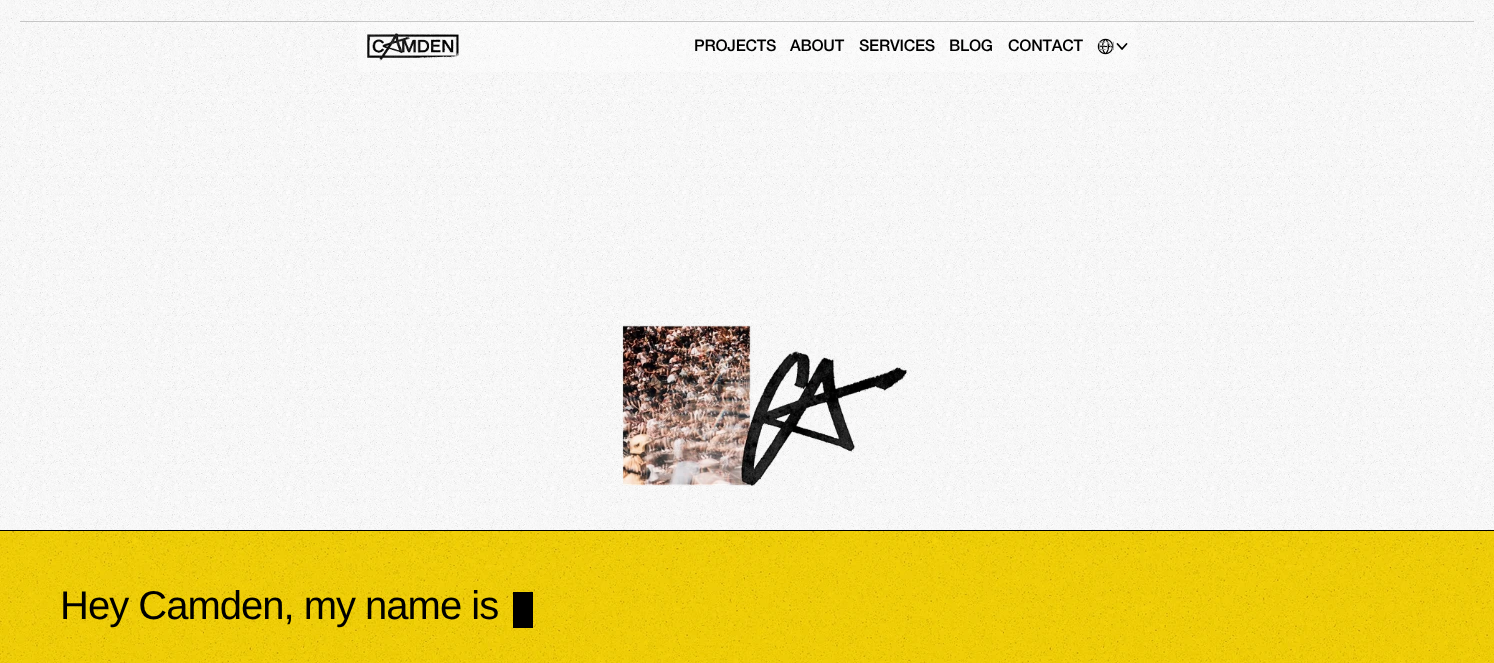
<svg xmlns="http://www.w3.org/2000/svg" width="1494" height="663">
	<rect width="100%" height="100%" fill="#FFFFFF" />
	<image x="0" y="0" width="1494" height="530" href="assets/img1.png" />
	<rect x="357" y="20" width="780" height="52" rx="5" fill="#FFFFFF" fill-opacity="0.3" />
	<rect x="20" y="21" width="1454" height="1" fill="#000000" fill-opacity="0.2" />
	<image x="622" y="325" width="286" height="161" href="assets/img2.png" />
	<image x="367" y="33" width="92" height="28" href="assets/img3.png" />
	<g font-family="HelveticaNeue" font-size="16" font-weight="500" letter-spacing="-0.25" fill="#000000">
		<text x="694" y="51">PROJECTS</text>
		<text x="790" y="51">ABOUT</text>
		<text x="859" y="51">SERVICES</text>
		<text x="949" y="51">BLOG</text>
		<text x="1008" y="51">CONTACT</text>
	</g>
	<image x="1097" y="38" width="17" height="17" href="assets/img4.png" />
	<path d="M1117.5 44L1122 49L1126.5 44" fill="none" stroke="#000000" stroke-width="1.8" stroke-linecap="round" stroke-linejoin="round" />
	<text x="1098" y="50" font-family="Liberation Sans" font-size="12" fill="#929292">EN</text>
	<image x="0" y="531" width="1494" height="132" href="assets/img5.png" />
	<rect x="0" y="530" width="1494" height="1" fill="#000000" />
	<text x="60" y="619" font-family="Liberation Sans" font-size="40" letter-spacing="-1" fill="#000000">Hey Camden, my name is</text>
	<rect x="513" y="592" width="20" height="36" fill="#000000" />
</svg>
